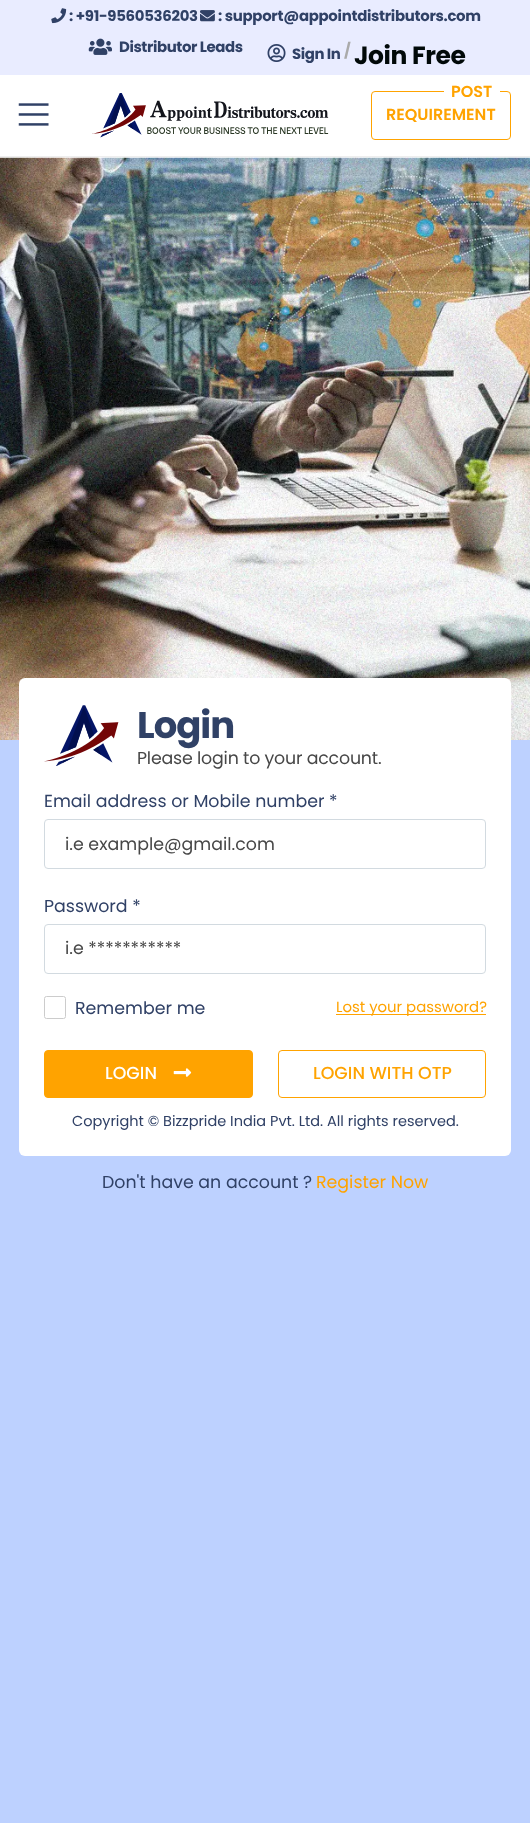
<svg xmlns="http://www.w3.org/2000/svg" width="530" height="1823">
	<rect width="100%" height="100%" fill="#FFFFFF" />
	<rect x="0" y="0" width="530" height="75" fill="#E9ECFF" />
	<image x="51" y="8" width="16" height="16" href="assets/img1.png" />
	<text x="69" y="21" font-family="Poppins" font-size="14.9" font-weight="700" letter-spacing="-0.3" fill="#304166">: +91-9560536203</text>
	<image x="200" y="10" width="15" height="12" href="assets/img2.png" />
	<text x="218" y="21" font-family="Poppins" font-size="14.9" font-weight="700" letter-spacing="-0.3" fill="#304166">: support@appointdistributors.com</text>
	<image x="88" y="38" width="24" height="17" href="assets/img3.png" />
	<text x="119" y="52" font-family="Poppins" font-size="14.9" font-weight="700" letter-spacing="-0.4" fill="#304166">Distributor Leads</text>
	<image x="267" y="44" width="19" height="18" href="assets/img4.png" />
	<text x="292" y="59" font-family="Poppins" font-size="14.9" font-weight="700" letter-spacing="-0.4" fill="#304166">Sign In</text>
	<text x="344" y="56" font-family="Poppins" font-size="14.9" font-weight="700" letter-spacing="-0.4" fill="#AAAAAA">/</text>
	<text x="354" y="64" font-family="Poppins" font-size="25" font-weight="700" letter-spacing="-0.4" fill="#010909">Join Free</text>
	<rect x="0" y="156" width="530" height="1" fill="#EEEEEE" />
	<image x="18" y="103" width="31" height="23" href="assets/img5.png" />
	<image x="92" y="93" width="237" height="45" href="assets/img6.png" />
	<rect x="371.5" y="91.5" width="139" height="48" rx="3.5" fill="none" stroke="#FFA300" />
	<rect x="444" y="91" width="56" height="1" fill="#FFFFFF" />
	<g font-family="Poppins" font-size="16" font-weight="600" fill="#FFA300">
		<text x="451" y="97">POST</text>
		<text x="386" y="120">REQUIREMENT</text>
	</g>
	<rect x="0" y="740" width="530" height="1083" fill="#BDD1FF" />
	<image x="0" y="157" width="530" height="583" href="assets/img7.png" />
	<rect x="19" y="678" width="492" height="478" rx="6" fill="#FFFFFF" />
	<image x="44" y="705" width="75" height="61" href="assets/img8.png" />
	<text x="137" y="738" font-family="Poppins" font-size="37" font-weight="700" letter-spacing="-1" fill="#304166">Login</text>
	<text x="137" y="764" font-family="Poppins" font-size="17.4" letter-spacing="-0.2" fill="#474747">Please login to your account.</text>
	<text x="44" y="807" font-family="Poppins" font-size="17.4" fill="#304166">Email address or Mobile number *</text>
	<rect x="44.5" y="819.5" width="441" height="49" rx="3.5" fill="none" stroke="#D2DAE0" />
	<text x="65" y="850" font-family="Poppins" font-size="17.4" fill="#474747">i.e example@gmail.com</text>
	<text x="44" y="912" font-family="Poppins" font-size="17.4" fill="#304166">Password *</text>
	<rect x="44.5" y="924.5" width="441" height="49" rx="3.5" fill="none" stroke="#D2DAE0" />
	<text x="65" y="954" font-family="Poppins" font-size="17.4" fill="#474747">i.e ***********</text>
	<rect x="44.5" y="996.5" width="21" height="22" rx="2" fill="none" stroke="#CCCCCC" />
	<text x="75" y="1014" font-family="Poppins" font-size="17.4" fill="#304166">Remember me</text>
	<rect x="336" y="1014" width="150" height="1" fill="#FFA300" />
	<text x="336" y="1012" font-family="Poppins" font-size="14.9" fill="#FFA300">Lost your password?</text>
	<rect x="44.5" y="1050.5" width="208" height="47" rx="3.5" fill="#FFA300" stroke="#FFA300" />
	<text x="105" y="1079" font-family="Poppins" font-size="17.4" font-weight="500" fill="#FFFFFF">LOGIN</text>
	<image x="173" y="1068" width="19" height="9" href="assets/img9.png" />
	<rect x="278.5" y="1050.5" width="207" height="47" rx="3.5" fill="none" stroke="#FFA300" />
	<text x="313" y="1079" font-family="Poppins" font-size="17.4" font-weight="500" fill="#FFA300">LOGIN WITH OTP</text>
	<text x="72" y="1126" font-family="Poppins" font-size="14.5" fill="#304166">Copyright © Bizzpride India Pvt. Ltd. All rights reserved.</text>
	<text x="102" y="1188" font-family="Poppins" font-size="17.4" fill="#304166">Don't have an account ?</text>
	<text x="316" y="1188" font-family="Poppins" font-size="17.4" fill="#FFA300">Register Now</text>
</svg>
